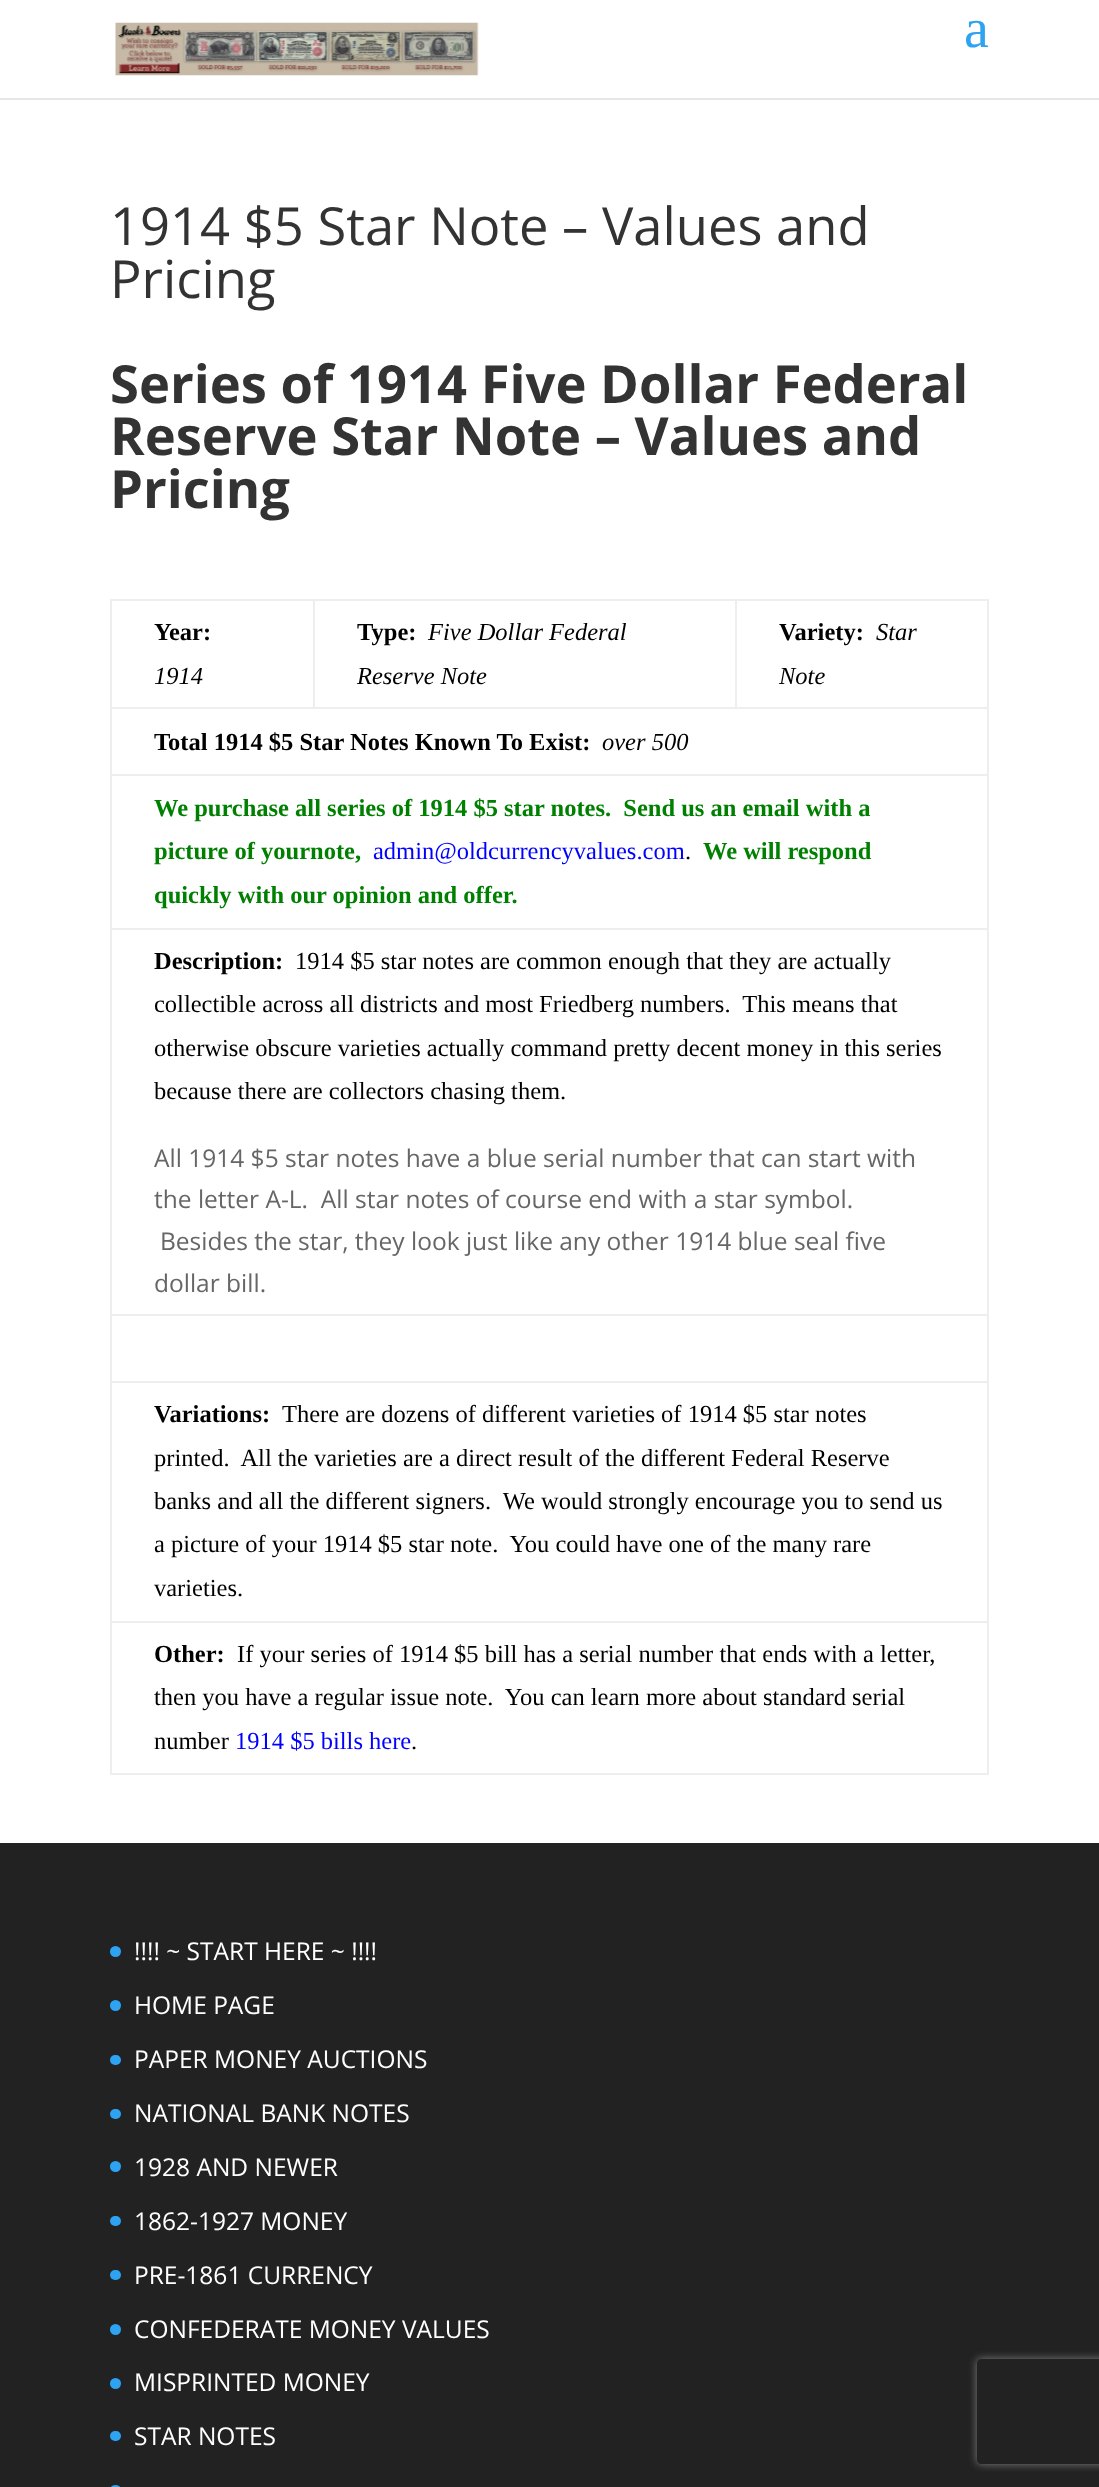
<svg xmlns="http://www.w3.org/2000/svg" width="1099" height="2487">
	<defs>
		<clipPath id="clip1"><path d="M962 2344H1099V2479H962ZM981 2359H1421C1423 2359 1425 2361 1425 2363V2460C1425 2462 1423 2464 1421 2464H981C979 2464 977 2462 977 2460V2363C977 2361 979 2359 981 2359Z" clip-rule="evenodd" /></clipPath>
	</defs>
	<rect width="100%" height="100%" fill="#FFFFFF" />
	<rect x="0" y="98" width="1099" height="2" fill="#E6E6E6" />
	<image x="115" y="22" width="364" height="54" href="assets/img1.png" />
	<text x="964" y="47" font-family="Liberation Serif" font-size="56" fill="#2EA3F2">a</text>
	<g font-family="Open Sans" font-size="52.5" fill="#333333">
		<text x="110" y="245">1914 $5 Star Note – Values and</text>
		<text x="110" y="298">Pricing</text>
	</g>
	<g font-family="Open Sans" font-size="52.5" font-weight="700" fill="#333333">
		<text x="110" y="403">Series of 1914 Five Dollar Federal</text>
		<text x="110" y="455">Reserve Star Note – Values and</text>
		<text x="110" y="508">Pricing</text>
	</g>
	<rect x="110" y="599" width="879" height="2" fill="#EEEEEE" />
	<rect x="987" y="599" width="2" height="1176" fill="#EEEEEE" />
	<rect x="110" y="1773" width="879" height="2" fill="#EEEEEE" />
	<rect x="110" y="599" width="2" height="1176" fill="#EEEEEE" />
	<text x="154" y="640" font-family="Liberation Serif" font-size="24.5" font-weight="700" fill="#000000">Year:</text>
	<text x="154" y="684" font-family="Liberation Serif" font-size="24.5" font-style="italic" fill="#000000">1914</text>
	<rect x="110" y="707" width="879" height="2" fill="#EEEEEE" />
	<rect x="313" y="599" width="2" height="110" fill="#EEEEEE" />
	<text x="357" y="640" font-family="Liberation Serif" font-size="24.5" font-weight="700" fill="#000000">Type:</text>
	<g font-family="Liberation Serif" font-size="24.5" font-style="italic" fill="#000000">
		<text x="428" y="640">Five Dollar Federal</text>
		<text x="357" y="684">Reserve Note</text>
	</g>
	<rect x="735" y="599" width="2" height="110" fill="#EEEEEE" />
	<text x="779" y="640" font-family="Liberation Serif" font-size="24.5" font-weight="700" fill="#000000">Variety:</text>
	<g font-family="Liberation Serif" font-size="24.5" font-style="italic" fill="#000000">
		<text x="876" y="640">Star</text>
		<text x="779" y="684">Note</text>
	</g>
	<text x="154" y="750" font-family="Liberation Serif" font-size="24.5" font-weight="700" fill="#000000">Total 1914 $5 Star Notes Known To Exist:</text>
	<text x="602" y="750" font-family="Liberation Serif" font-size="24.5" font-style="italic" fill="#000000">over 500</text>
	<rect x="110" y="774" width="879" height="2" fill="#EEEEEE" />
	<g font-family="Liberation Serif" font-size="24.5" font-weight="700" fill="#008000">
		<text x="154" y="816" xml:space="preserve">We purchase all series of 1914 $5 star notes.  Send us an email with a</text>
		<text x="154" y="859">picture of yournote,</text>
	</g>
	<text x="373" y="859" font-family="Liberation Serif" font-size="24.5" fill="#0000FF">admin@oldcurrencyvalues.com</text>
	<text x="685" y="859" font-family="Liberation Serif" font-size="24.5" fill="#000000">.</text>
	<g font-family="Liberation Serif" font-size="24.5" font-weight="700" fill="#008000">
		<text x="703" y="859">We will respond</text>
		<text x="154" y="903">quickly with our opinion and offer.</text>
	</g>
	<rect x="110" y="928" width="879" height="2" fill="#EEEEEE" />
	<text x="154" y="969" font-family="Liberation Serif" font-size="24.5" font-weight="700" fill="#000000">Description:</text>
	<g font-family="Liberation Serif" font-size="24.5" fill="#000000">
		<text x="295" y="969">1914 $5 star notes are common enough that they are actually</text>
		<text x="154" y="1012" xml:space="preserve">collectible across all districts and most Friedberg numbers.  This means that</text>
		<text x="154" y="1056">otherwise obscure varieties actually command pretty decent money in this series</text>
		<text x="154" y="1099">because there are collectors chasing them.</text>
	</g>
	<g font-family="Open Sans" font-size="24.5" fill="#666666">
		<text x="154" y="1167">All 1914 $5 star notes have a blue serial number that can start with</text>
		<text x="154" y="1208" xml:space="preserve">the letter A-L.  All star notes of course end with a star symbol.</text>
		<text x="160" y="1250">Besides the star, they look just like any other 1914 blue seal five</text>
		<text x="154" y="1292">dollar bill.</text>
	</g>
	<rect x="110" y="1314" width="879" height="2" fill="#EEEEEE" />
	<rect x="110" y="1381" width="879" height="2" fill="#EEEEEE" />
	<text x="154" y="1422" font-family="Liberation Serif" font-size="24.5" font-weight="700" fill="#000000">Variations:</text>
	<g font-family="Liberation Serif" font-size="24.5" fill="#000000">
		<text x="282" y="1422">There are dozens of different varieties of 1914 $5 star notes</text>
		<text x="154" y="1466" xml:space="preserve">printed.  All the varieties are a direct result of the different Federal Reserve</text>
		<text x="154" y="1509" xml:space="preserve">banks and all the different signers.  We would strongly encourage you to send us</text>
		<text x="154" y="1552" xml:space="preserve">a picture of your 1914 $5 star note.  You could have one of the many rare</text>
		<text x="154" y="1596">varieties.</text>
	</g>
	<rect x="110" y="1621" width="879" height="2" fill="#EEEEEE" />
	<text x="154" y="1662" font-family="Liberation Serif" font-size="24.5" font-weight="700" fill="#000000">Other:</text>
	<g font-family="Liberation Serif" font-size="24.5" fill="#000000">
		<text x="237" y="1662">If your series of 1914 $5 bill has a serial number that ends with a letter,</text>
		<text x="154" y="1705" xml:space="preserve">then you have a regular issue note.  You can learn more about standard serial</text>
		<text x="154" y="1749">number</text>
	</g>
	<text x="235" y="1749" font-family="Liberation Serif" font-size="24.5" fill="#0000FF">1914 $5 bills here</text>
	<text x="411" y="1749" font-family="Liberation Serif" font-size="24.5" fill="#000000">.</text>
	<rect x="0" y="1843" width="1099" height="644" fill="#222222" />
	<circle cx="115.5" cy="1951.5" r="5.5" fill="#2EA3F2" />
	<text x="134" y="1960" font-family="Open Sans" font-size="24.5" fill="#FFFFFF">!!!! ~ START HERE ~ !!!!</text>
	<circle cx="115.5" cy="2005.5" r="5.5" fill="#2EA3F2" />
	<text x="134" y="2014" font-family="Open Sans" font-size="24.5" fill="#FFFFFF">HOME PAGE</text>
	<rect x="110" y="2055" width="11" height="10" rx="5" fill="#2EA3F2" />
	<text x="134" y="2068" font-family="Open Sans" font-size="24.5" fill="#FFFFFF">PAPER MONEY AUCTIONS</text>
	<rect x="110" y="2109" width="11" height="10" rx="5" fill="#2EA3F2" />
	<text x="134" y="2122" font-family="Open Sans" font-size="24.5" fill="#FFFFFF">NATIONAL BANK NOTES</text>
	<circle cx="115.5" cy="2166.5" r="5.5" fill="#2EA3F2" />
	<text x="134" y="2176" font-family="Open Sans" font-size="24.5" fill="#FFFFFF">1928 AND NEWER</text>
	<rect x="110" y="2216" width="11" height="10" rx="5" fill="#2EA3F2" />
	<text x="134" y="2230" font-family="Open Sans" font-size="24.5" fill="#FFFFFF">1862-1927 MONEY</text>
	<rect x="110" y="2270" width="11" height="10" rx="5" fill="#2EA3F2" />
	<text x="134" y="2284" font-family="Open Sans" font-size="24.5" fill="#FFFFFF">PRE-1861 CURRENCY</text>
	<circle cx="115.5" cy="2329.5" r="5.5" fill="#2EA3F2" />
	<text x="134" y="2338" font-family="Open Sans" font-size="24.5" fill="#FFFFFF">CONFEDERATE MONEY VALUES</text>
	<circle cx="115.5" cy="2383.5" r="5.5" fill="#2EA3F2" />
	<text x="134" y="2391" font-family="Open Sans" font-size="24.5" fill="#FFFFFF">MISPRINTED MONEY</text>
	<rect x="110" y="2431" width="11" height="10" rx="5" fill="#2EA3F2" />
	<text x="134" y="2445" font-family="Open Sans" font-size="24.5" fill="#FFFFFF">STAR NOTES</text>
	<rect x="110" y="2485" width="11" height="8" rx="5.5" fill="#2EA3F2" />
	<g clip-path="url(#clip1)">
		<rect x="977" y="2359" width="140" height="105" rx="4" fill="#808080" filter="blur(4.5px)" />
	</g>
</svg>
